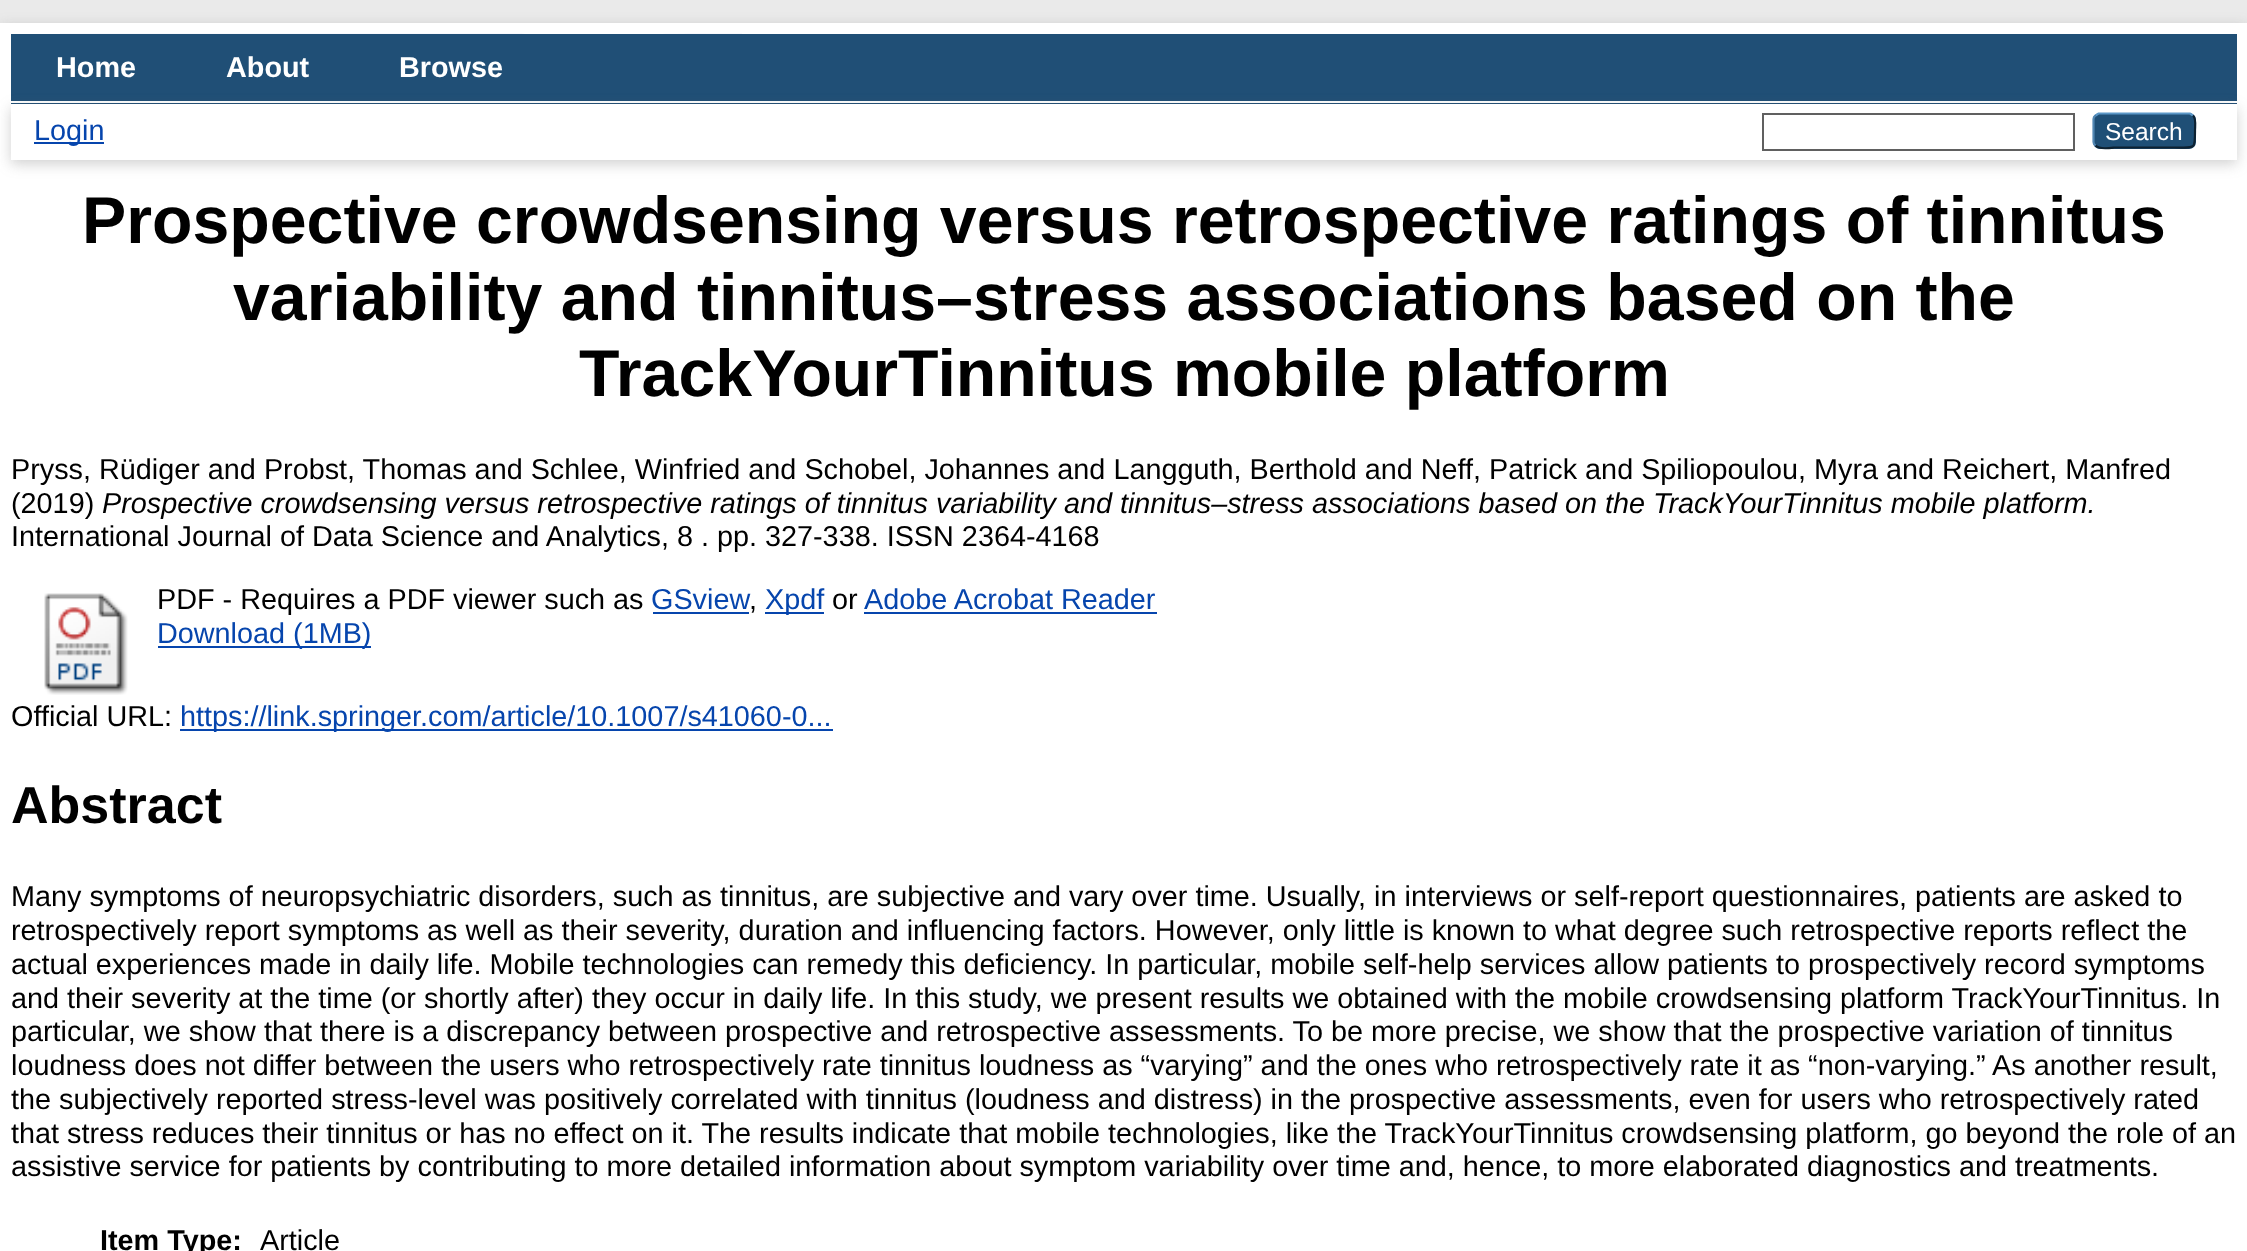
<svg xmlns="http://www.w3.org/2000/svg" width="2247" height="1251">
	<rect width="100%" height="100%" fill="#EAEAEA" />
	<rect x="0" y="27" width="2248" height="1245" fill="#646464" fill-opacity="0.3" filter="blur(7px)" />
	<rect x="0" y="23" width="2247" height="1228" fill="#FFFFFF" />
	<image x="60" y="33" width="682" height="1" href="assets/img1.png" />
	<rect x="11" y="34" width="2226" height="70" fill="#204F76" />
	<rect x="11" y="101" width="2226" height="2" fill="#FFFFFF" />
	<g font-family="Liberation Sans" font-size="28.8" font-weight="700" fill="#FFFFFF">
		<text x="56" y="77">Home</text>
		<text x="226" y="77">About</text>
		<text x="399" y="77">Browse</text>
	</g>
	<rect x="11" y="108" width="2226" height="56" fill="#646464" fill-opacity="0.3" filter="blur(7px)" />
	<rect x="11" y="104" width="2226" height="56" fill="#FFFFFF" />
	<rect x="34" y="142" width="70" height="2" fill="#0645AD" />
	<text x="34" y="140" font-family="Liberation Sans" font-size="28.8" fill="#0645AD">Login</text>
	<rect x="1763" y="114" width="311" height="36" fill="none" stroke="#606060" stroke-width="2" />
	<rect x="2093" y="113" width="103" height="36" rx="7" fill="#1F4F76" />
	<path d="M2095.5 115.5L2098.5 113.5H2190L2193 115.5" fill="none" stroke="#5B97C7" stroke-width="2.2" />
	<path d="M2193 115.5C2196.5 118.5 2195 126.5 2195 130.5C2195 150.5 2195.5 147.5 2174 147.5H2114C2113.5 147.5 2099.5 150 2095.5 145.5" fill="none" stroke="#0D2131" stroke-width="2.2" />
	<path d="M2095.5 145.5C2094 144.5 2093.5 143 2093.5 142V119C2093.5 118 2094 116.5 2095.5 115.5" fill="none" stroke="#5287B3" stroke-width="2.2" />
	<text x="2105" y="140" font-family="Liberation Sans" font-size="24.5" fill="#FFFFFF">Search</text>
	<g font-family="Liberation Sans" font-size="66.25" font-weight="700" fill="#000000">
		<text x="82" y="243">Prospective crowdsensing versus retrospective ratings of tinnitus</text>
		<text x="233" y="320">variability and tinnitus–stress associations based on the</text>
		<text x="579" y="396">TrackYourTinnitus mobile platform</text>
	</g>
	<g font-family="Liberation Sans" font-size="28.8" fill="#000000">
		<text x="11" y="479">Pryss, Rüdiger and Probst, Thomas and Schlee, Winfried and Schobel, Johannes and Langguth, Berthold and Neff, Patrick and Spiliopoulou, Myra and Reichert, Manfred</text>
		<text x="11" y="513">(2019)</text>
	</g>
	<text x="102" y="513" font-family="Liberation Sans" font-size="28.8" font-style="italic" fill="#000000">Prospective crowdsensing versus retrospective ratings of tinnitus variability and tinnitus–stress associations based on the TrackYourTinnitus mobile platform.</text>
	<text x="11" y="546" font-family="Liberation Sans" font-size="28.8" fill="#000000">International Journal of Data Science and Analytics, 8 . pp. 327-338. ISSN 2364-4168</text>
	<image x="44" y="593" width="84" height="102" href="assets/img2.png" />
	<text x="157" y="609" font-family="Liberation Sans" font-size="28.8" fill="#000000">PDF - Requires a PDF viewer such as</text>
	<text x="651" y="609" font-family="Liberation Sans" font-size="28.8" fill="#0645AD">GSview</text>
	<rect x="653" y="612" width="96" height="2" fill="#0645AD" />
	<text x="749" y="609" font-family="Liberation Sans" font-size="28.8" fill="#000000">,</text>
	<rect x="765" y="612" width="59" height="2" fill="#0645AD" />
	<text x="765" y="609" font-family="Liberation Sans" font-size="28.8" fill="#0645AD">Xpdf</text>
	<text x="832" y="609" font-family="Liberation Sans" font-size="28.8" fill="#000000">or</text>
	<text x="864" y="609" font-family="Liberation Sans" font-size="28.8" fill="#0645AD">Adobe Acrobat Reader</text>
	<rect x="864" y="612" width="293" height="2" fill="#0645AD" />
	<rect x="158" y="646" width="213" height="2" fill="#0645AD" />
	<text x="157" y="643" font-family="Liberation Sans" font-size="28.8" fill="#0645AD">Download (1MB)</text>
	<text x="11" y="726" font-family="Liberation Sans" font-size="28.8" fill="#000000">Official URL:</text>
	<rect x="180" y="729" width="653" height="2" fill="#0645AD" />
	<text x="180" y="726" font-family="Liberation Sans" font-size="28.8" fill="#0645AD">https://link.springer.com/article/10.1007/s41060-0...</text>
	<text x="11" y="823" font-family="Liberation Sans" font-size="52" font-weight="700" fill="#000000">Abstract</text>
	<g font-family="Liberation Sans" font-size="28.8" fill="#000000">
		<text x="11" y="906">Many symptoms of neuropsychiatric disorders, such as tinnitus, are subjective and vary over time. Usually, in interviews or self-report questionnaires, patients are asked to</text>
		<text x="11" y="940">retrospectively report symptoms as well as their severity, duration and influencing factors. However, only little is known to what degree such retrospective reports reflect the</text>
		<text x="11" y="974">actual experiences made in daily life. Mobile technologies can remedy this deficiency. In particular, mobile self-help services allow patients to prospectively record symptoms</text>
		<text x="11" y="1008">and their severity at the time (or shortly after) they occur in daily life. In this study, we present results we obtained with the mobile crowdsensing platform TrackYourTinnitus. In</text>
		<text x="11" y="1041">particular, we show that there is a discrepancy between prospective and retrospective assessments. To be more precise, we show that the prospective variation of tinnitus</text>
		<text x="11" y="1075">loudness does not differ between the users who retrospectively rate tinnitus loudness as “varying” and the ones who retrospectively rate it as “non-varying.” As another result,</text>
		<text x="11" y="1109">the subjectively reported stress-level was positively correlated with tinnitus (loudness and distress) in the prospective assessments, even for users who retrospectively rated</text>
		<text x="11" y="1143">that stress reduces their tinnitus or has no effect on it. The results indicate that mobile technologies, like the TrackYourTinnitus crowdsensing platform, go beyond the role of an</text>
		<text x="11" y="1176">assistive service for patients by contributing to more detailed information about symptom variability over time and, hence, to more elaborated diagnostics and treatments.</text>
	</g>
	<text x="100" y="1250" font-family="Liberation Sans" font-size="28.8" font-weight="700" fill="#000000">Item Type:</text>
	<text x="260" y="1250" font-family="Liberation Sans" font-size="28.8" fill="#000000">Article</text>
</svg>
